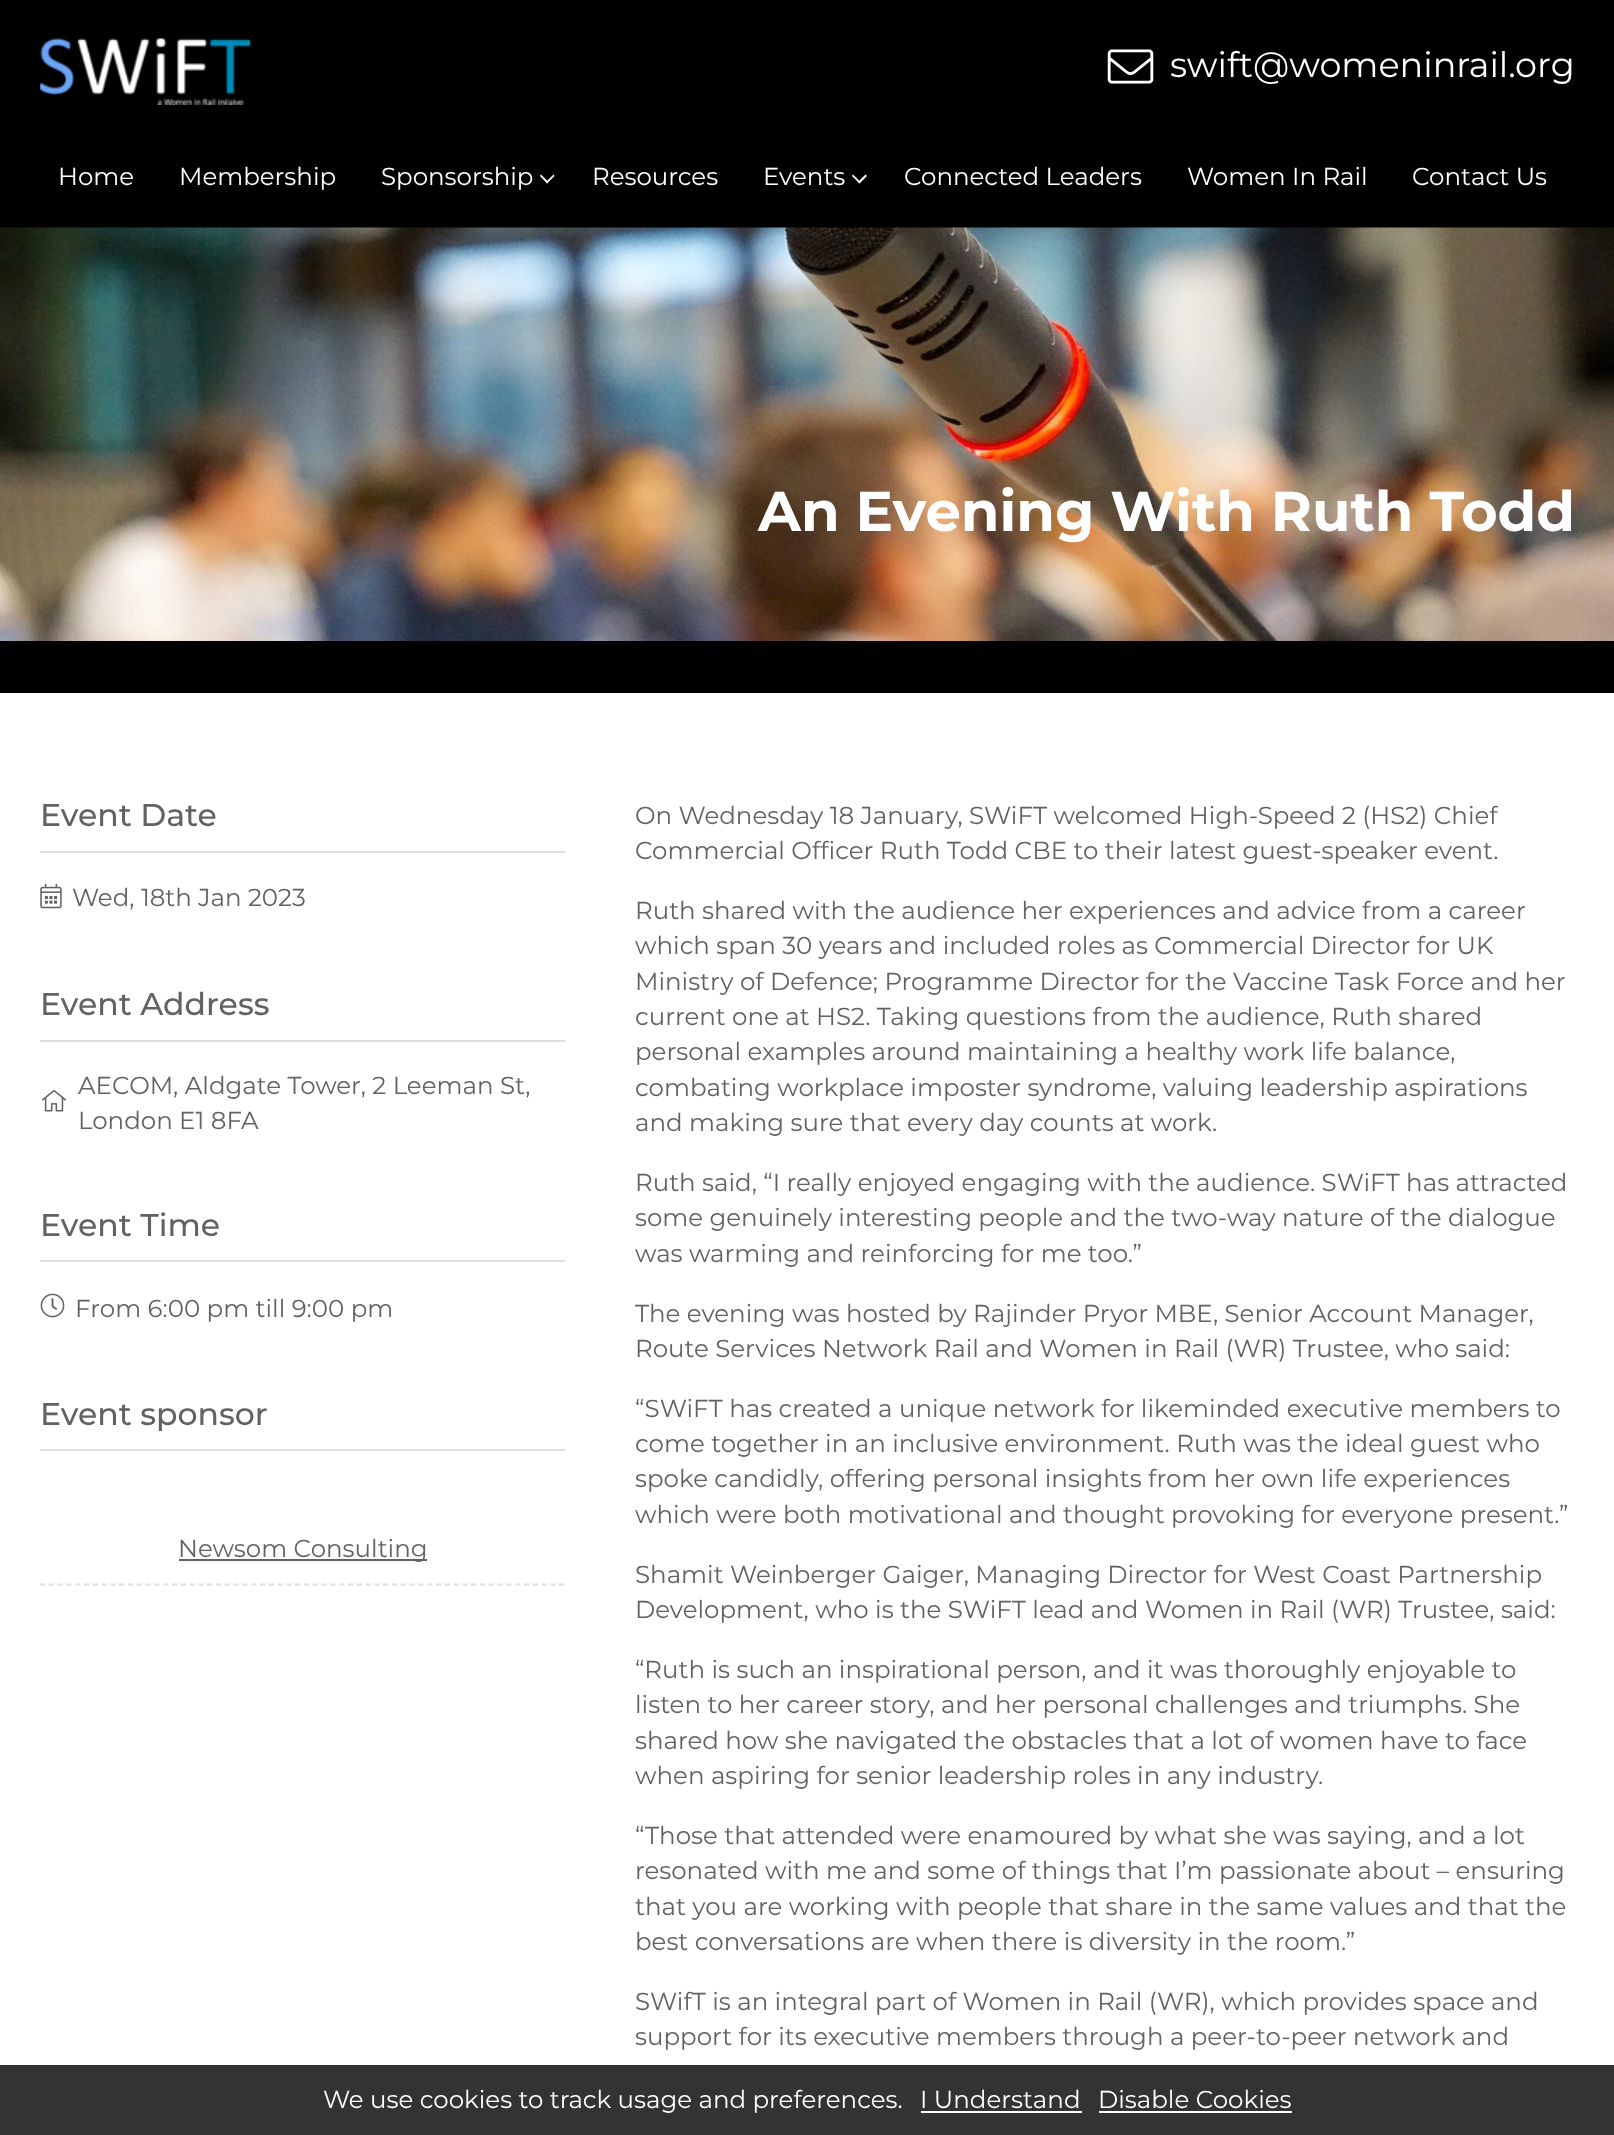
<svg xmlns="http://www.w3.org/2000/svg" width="1614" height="2135">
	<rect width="100%" height="100%" fill="#FFFFFF" />
	<rect x="0" y="0" width="1614" height="228" fill="#000000" />
	<image x="40" y="38" width="211" height="67" href="assets/img1.png" />
	<image x="1107" y="49" width="47" height="35" href="assets/img2.png" />
	<text x="1170" y="77" font-family="Montserrat" font-size="35" font-weight="100" fill="#FFFFFF">swift@womeninrail.org</text>
	<g font-family="Montserrat" font-size="24.5" font-weight="100" fill="#FFFFFF">
		<text x="58" y="185">Home</text>
		<text x="179" y="185">Membership</text>
		<text x="381" y="185">Sponsorship</text>
	</g>
	<path d="M553.5 174.5L554.5 176L547 183.5L546 182Z" fill="#FFFFFF" />
	<path d="M541 174.5L548.5 182L547 183.5L540 176Z" fill="#FFFFFF" />
	<g font-family="Montserrat" font-size="24.5" font-weight="100" fill="#FFFFFF">
		<text x="592" y="185">Resources</text>
		<text x="763" y="185">Events</text>
	</g>
	<path d="M865.5 174.5L867 176L859.5 183.5L858 182Z" fill="#FFFFFF" />
	<path d="M853 174.5L860.5 182L859.5 183.5L852 176Z" fill="#FFFFFF" />
	<g font-family="Montserrat" font-size="24.5" font-weight="100" fill="#FFFFFF">
		<text x="904" y="185">Connected Leaders</text>
		<text x="1187" y="185">Women In Rail</text>
		<text x="1412" y="185">Contact Us</text>
	</g>
	<image x="0" y="227" width="1614" height="414" href="assets/img3.png" />
	<rect x="0" y="641" width="1614" height="52" fill="#000000" />
	<text x="758" y="531" font-family="'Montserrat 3'" font-size="56" font-weight="100" fill="#FFFFFF">An Evening With Ruth Todd</text>
	<rect x="40" y="851" width="525" height="2" fill="#E0E0E0" />
	<text x="40" y="826" font-family="'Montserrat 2'" font-size="31.5" font-weight="100" fill="#626262">Event Date</text>
	<image x="40" y="883" width="22" height="26" href="assets/img4.png" />
	<text x="72" y="906" font-family="Montserrat" font-size="24.5" font-weight="100" fill="#626262">Wed, 18th Jan 2023</text>
	<rect x="40" y="1040" width="525" height="2" fill="#E0E0E0" />
	<text x="40" y="1015" font-family="'Montserrat 2'" font-size="31.5" font-weight="100" fill="#626262">Event Address</text>
	<image x="41" y="1090" width="26" height="22" href="assets/img5.png" />
	<g font-family="Montserrat" font-size="24.5" font-weight="100" fill="#626262">
		<text x="78" y="1094">AECOM, Aldgate Tower, 2 Leeman St,</text>
		<text x="78" y="1129">London E1 8FA</text>
	</g>
	<rect x="40" y="1260" width="525" height="2" fill="#E0E0E0" />
	<text x="40" y="1236" font-family="'Montserrat 2'" font-size="31.5" font-weight="100" fill="#626262">Event Time</text>
	<image x="40" y="1293" width="25" height="25" href="assets/img6.png" />
	<text x="75" y="1317" font-family="Montserrat" font-size="24.5" font-weight="100" fill="#626262">From 6:00 pm till 9:00 pm</text>
	<rect x="40" y="1449" width="525" height="2" fill="#E0E0E0" />
	<text x="40" y="1425" font-family="'Montserrat 2'" font-size="31.5" font-weight="100" fill="#626262">Event sponsor</text>
	<path d="M40 1584.5H565" fill="none" stroke="#E0E0E0" stroke-width="1.8" stroke-dasharray="5.25 3.55" />
	<rect x="179" y="1559" width="248" height="2" fill="#626262" />
	<g font-family="Montserrat" font-size="24.5" font-weight="100" fill="#626262">
		<text x="178" y="1557">Newsom Consulting</text>
		<text x="635" y="824">On Wednesday 18 January, SWiFT welcomed High-Speed 2 (HS2) Chief</text>
		<text x="635" y="859">Commercial Officer Ruth Todd CBE to their latest guest-speaker event.</text>
		<text x="635" y="919">Ruth shared with the audience her experiences and advice from a career</text>
		<text x="635" y="954">which span 30 years and included roles as Commercial Director for UK</text>
		<text x="635" y="990">Ministry of Defence; Programme Director for the Vaccine Task Force and her</text>
		<text x="635" y="1025">current one at HS2. Taking questions from the audience, Ruth shared</text>
		<text x="635" y="1060">personal examples around maintaining a healthy work life balance,</text>
		<text x="635" y="1096">combating workplace imposter syndrome, valuing leadership aspirations</text>
		<text x="635" y="1131">and making sure that every day counts at work.</text>
		<text x="635" y="1191">Ruth said, “I really enjoyed engaging with the audience. SWiFT has attracted</text>
		<text x="635" y="1226">some genuinely interesting people and the two-way nature of the dialogue</text>
		<text x="635" y="1262">was warming and reinforcing for me too.”</text>
		<text x="635" y="1322">The evening was hosted by Rajinder Pryor MBE, Senior Account Manager,</text>
		<text x="635" y="1357">Route Services Network Rail and Women in Rail (WR) Trustee, who said:</text>
		<text x="635" y="1417">“SWiFT has created a unique network for likeminded executive members to</text>
		<text x="635" y="1452">come together in an inclusive environment. Ruth was the ideal guest who</text>
		<text x="635" y="1487">spoke candidly, offering personal insights from her own life experiences</text>
		<text x="635" y="1523">which were both motivational and thought provoking for everyone present.”</text>
		<text x="635" y="1583">Shamit Weinberger Gaiger, Managing Director for West Coast Partnership</text>
		<text x="635" y="1618">Development, who is the SWiFT lead and Women in Rail (WR) Trustee, said:</text>
		<text x="635" y="1678">“Ruth is such an inspirational person, and it was thoroughly enjoyable to</text>
		<text x="635" y="1713">listen to her career story, and her personal challenges and triumphs. She</text>
		<text x="635" y="1749">shared how she navigated the obstacles that a lot of women have to face</text>
		<text x="635" y="1784">when aspiring for senior leadership roles in any industry.</text>
		<text x="635" y="1844">“Those that attended were enamoured by what she was saying, and a lot</text>
		<text x="635" y="1879">resonated with me and some of things that I’m passionate about – ensuring</text>
		<text x="635" y="1915">that you are working with people that share in the same values and that the</text>
		<text x="635" y="1950">best conversations are when there is diversity in the room.”</text>
		<text x="635" y="2010">SWifT is an integral part of Women in Rail (WR), which provides space and</text>
		<text x="635" y="2045">support for its executive members through a peer-to-peer network and</text>
	</g>
	<rect x="0" y="2065" width="1614" height="70" fill="#000000" fill-opacity="0.8" />
	<g font-family="Montserrat" font-size="24.5" font-weight="100" fill="#FFFFFF">
		<text x="323" y="2108">We use cookies to track usage and preferences.</text>
		<text x="920" y="2108">I Understand</text>
	</g>
	<rect x="921" y="2111" width="161" height="2" fill="#FFFFFF" />
	<text x="1098" y="2108" font-family="Montserrat" font-size="24.5" font-weight="100" fill="#FFFFFF">Disable Cookies</text>
	<rect x="1099" y="2111" width="193" height="2" fill="#FFFFFF" />
</svg>
